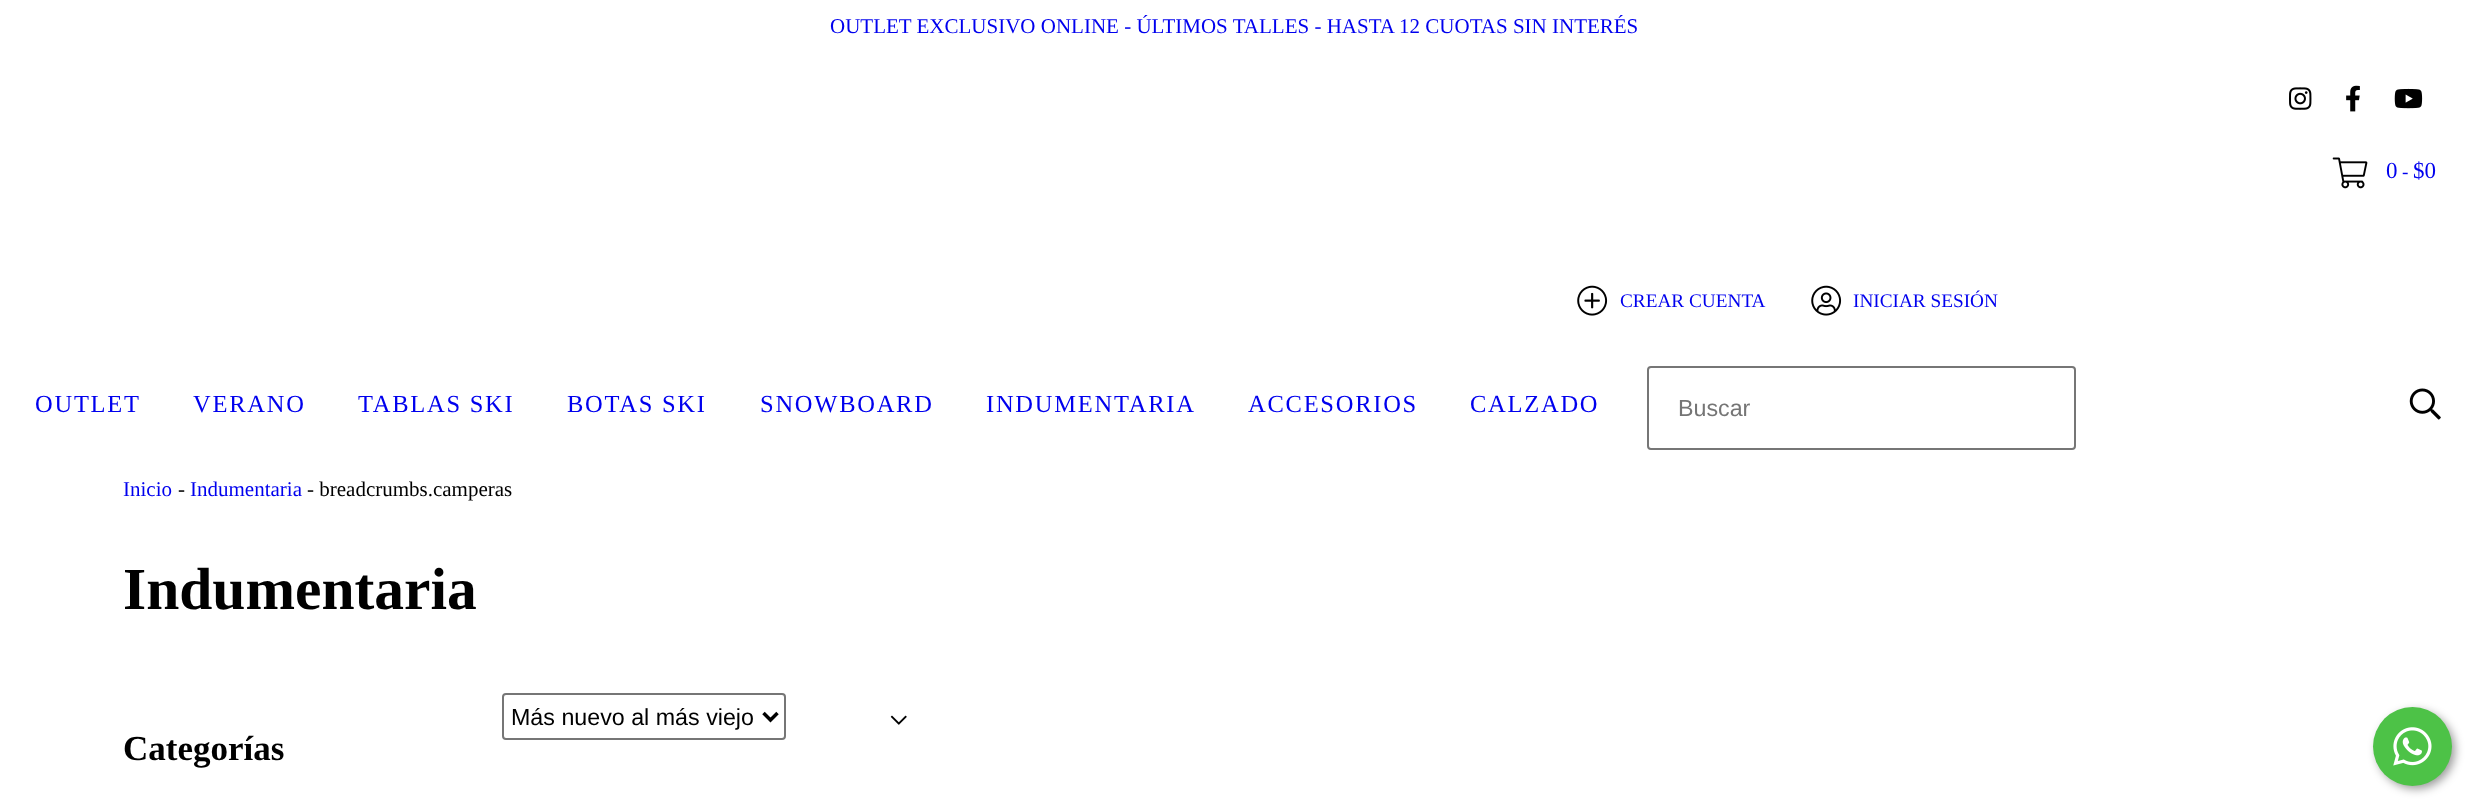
<svg xmlns="http://www.w3.org/2000/svg" width="2468" height="802">
	<rect width="100%" height="100%" fill="#FFFFFF" />
	<text x="830" y="33" font-family="Liberation Serif" font-size="21" fill="#0000EE">OUTLET EXCLUSIVO ONLINE - ÚLTIMOS TALLES - HASTA 12 CUOTAS SIN INTERÉS</text>
	<image x="2289" y="87" width="23" height="23" href="assets/img1.png" />
	<image x="2346" y="85" width="14" height="27" href="assets/img2.png" />
	<image x="2394" y="88" width="29" height="21" href="assets/img3.png" />
	<image x="2332" y="157" width="36" height="32" href="assets/img4.png" />
	<text x="2386" y="178" font-family="Liberation Serif" font-size="23" fill="#0000EE">0</text>
	<text x="2402" y="178" font-family="Liberation Serif" font-size="19.25" fill="#0000EE">-</text>
	<text x="2413" y="178" font-family="Liberation Serif" font-size="23" fill="#0000EE">$0</text>
	<image x="1577" y="285" width="31" height="31" href="assets/img5.png" />
	<text x="1620" y="307" font-family="Liberation Serif" font-size="19.25" fill="#0000EE">CREAR CUENTA</text>
	<image x="1811" y="285" width="31" height="31" href="assets/img6.png" />
	<text x="1853" y="307" font-family="Liberation Serif" font-size="19.25" fill="#0000EE">INICIAR SESIÓN</text>
	<g font-family="Liberation Serif" font-size="24.5" letter-spacing="1.75" fill="#0000EE">
		<text x="35" y="412">OUTLET</text>
		<text x="193" y="412">VERANO</text>
		<text x="358" y="412">TABLAS SKI</text>
		<text x="567" y="412">BOTAS SKI</text>
		<text x="760" y="412">SNOWBOARD</text>
		<text x="986" y="412">INDUMENTARIA</text>
		<text x="1248" y="412">ACCESORIOS</text>
		<text x="1470" y="412">CALZADO</text>
	</g>
	<rect x="1648" y="367" width="427" height="82" rx="3" fill="none" stroke="#767676" stroke-width="2" />
	<text x="1678" y="416" font-family="Liberation Sans" font-size="23.25" fill="#757575">Buscar</text>
	<image x="2409" y="388" width="32" height="32" href="assets/img7.png" />
	<text x="123" y="496" font-family="Liberation Serif" font-size="21" fill="#0000EE">Inicio</text>
	<text x="178" y="496" font-family="Liberation Serif" font-size="21" fill="#000000">-</text>
	<text x="190" y="496" font-family="Liberation Serif" font-size="21" fill="#0000EE">Indumentaria</text>
	<text x="307" y="496" font-family="Liberation Serif" font-size="21" fill="#000000">- breadcrumbs.camperas</text>
	<text x="123" y="609" font-family="Liberation Serif" font-size="59.5" font-weight="700" fill="#000000">Indumentaria</text>
	<rect x="503" y="694" width="282" height="45" rx="3" fill="none" stroke="#767676" stroke-width="2" />
	<path d="M763.5 713L770.5 720L777.5 713" fill="none" stroke="#000000" stroke-width="3.5" />
	<text x="511" y="725" font-family="Liberation Sans" font-size="23.25" fill="#000000">Más nuevo al más viejo</text>
	<image x="890" y="715" width="17" height="10" href="assets/img8.png" />
	<text x="123" y="760" font-family="Liberation Serif" font-size="35" font-weight="700" fill="#000000">Categorías</text>
	<rect x="2377" y="711" width="78" height="78" rx="39" fill="#000000" fill-opacity="0.4" filter="blur(5px)" />
	<circle cx="2412.5" cy="746.5" r="39.5" fill="#4DC247" />
	<image x="2393" y="727" width="39" height="39" href="assets/img9.png" />
</svg>
